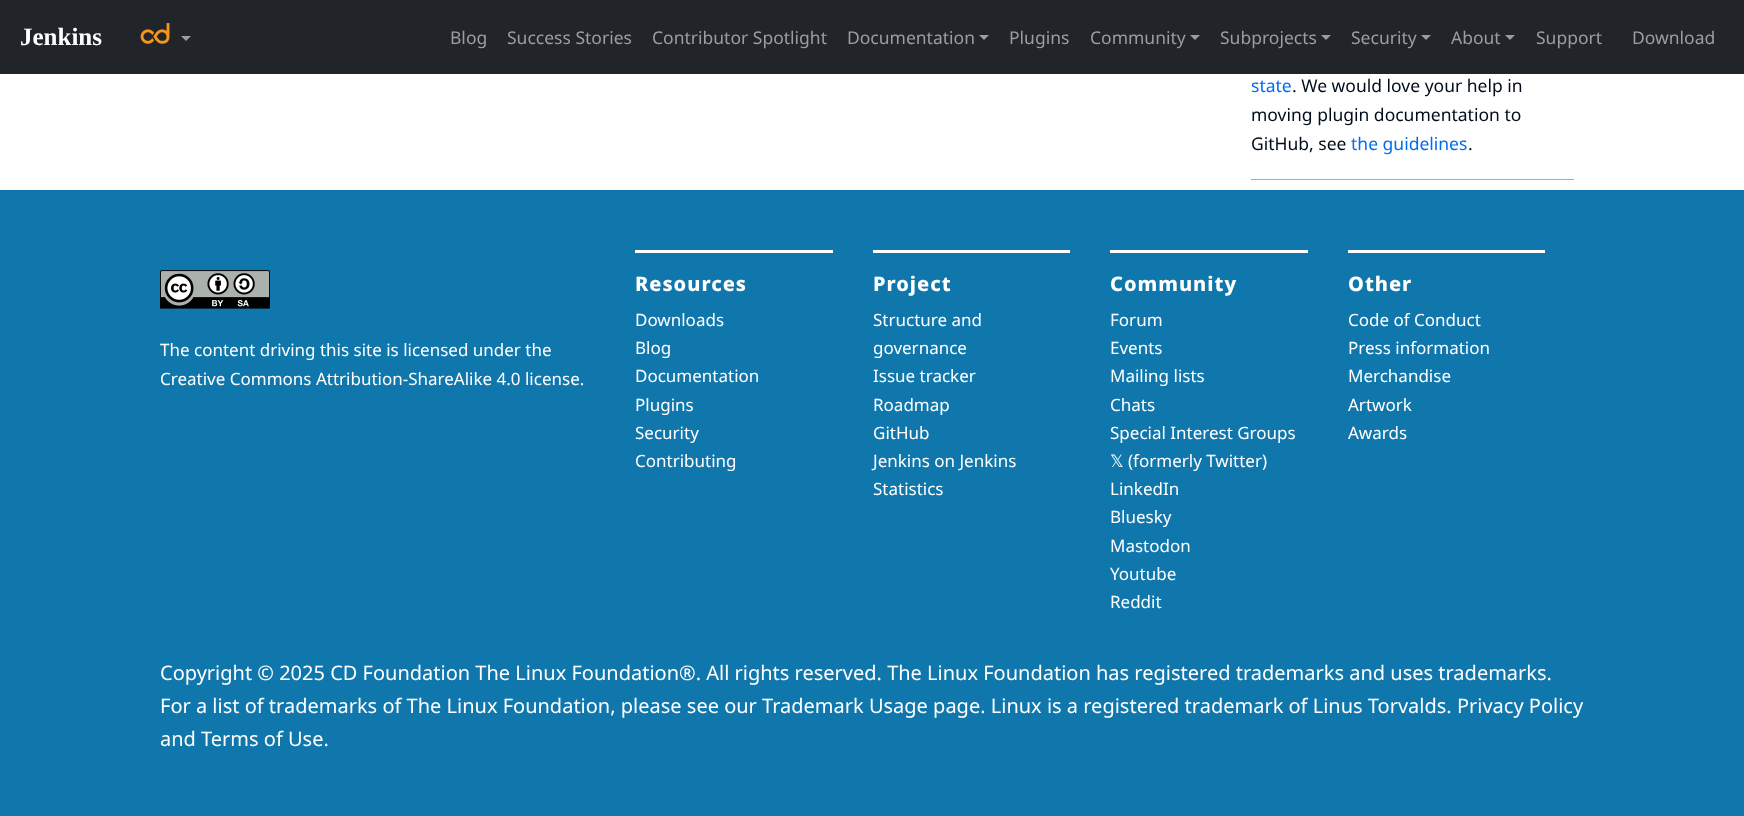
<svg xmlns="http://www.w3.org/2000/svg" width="1744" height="816">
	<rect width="100%" height="100%" fill="#FFFFFF" />
	<rect x="0" y="0" width="1744" height="74" fill="#212529" />
	<text x="20" y="45" font-family="Liberation Serif" font-size="25" font-weight="700" fill="#FFFFFF">Jenkins</text>
	<image x="140" y="23" width="30" height="21" href="assets/img1.png" />
	<path d="M181 36H191L186 41Z" fill="#9B9D9F" />
	<g font-family="Noto Sans" font-size="17.5" fill="#9B9D9F">
		<text x="450" y="44">Blog</text>
		<text x="507" y="44">Success Stories</text>
		<text x="652" y="44">Contributor Spotlight</text>
		<text x="847" y="44">Documentation</text>
	</g>
	<path d="M979 35H989L984 40Z" fill="#9B9D9F" />
	<g font-family="Noto Sans" font-size="17.5" fill="#9B9D9F">
		<text x="1009" y="44">Plugins</text>
		<text x="1090" y="44">Community</text>
	</g>
	<path d="M1190 35H1200L1195 40Z" fill="#9B9D9F" />
	<text x="1220" y="44" font-family="Noto Sans" font-size="17.5" fill="#9B9D9F">Subprojects</text>
	<path d="M1321 35H1331L1326 40Z" fill="#9B9D9F" />
	<text x="1351" y="44" font-family="Noto Sans" font-size="17.5" fill="#9B9D9F">Security</text>
	<path d="M1421 35H1431L1426 40Z" fill="#9B9D9F" />
	<text x="1451" y="44" font-family="Noto Sans" font-size="17.5" fill="#9B9D9F">About</text>
	<path d="M1505 35H1515L1510 40Z" fill="#9B9D9F" />
	<g font-family="Noto Sans" font-size="17.5" fill="#9B9D9F">
		<text x="1536" y="44">Support</text>
		<text x="1632" y="44">Download</text>
	</g>
	<text x="1251" y="92" font-family="Noto Sans" font-size="17.5" fill="#006CF6">state</text>
	<g font-family="Noto Sans" font-size="17.5" fill="#000C1A">
		<text x="1292" y="92">. We would love your help in</text>
		<text x="1251" y="121">moving plugin documentation to</text>
		<text x="1251" y="150">GitHub, see</text>
	</g>
	<text x="1351" y="150" font-family="Noto Sans" font-size="17.5" fill="#006CF6">the guidelines</text>
	<text x="1468" y="150" font-family="Noto Sans" font-size="17.5" fill="#000C1A">.</text>
	<rect x="1251" y="179" width="323" height="1" fill="#AAAAAA" />
	<rect x="0" y="190" width="1744" height="626" fill="#1077AD" />
	<image x="160" y="270" width="110" height="39" href="assets/img2.png" />
	<g font-family="Noto Sans" font-size="17" fill="#FFFFFF">
		<text x="160" y="356">The content driving this site is licensed under the</text>
		<text x="160" y="385">Creative Commons Attribution-ShareAlike 4.0 license.</text>
	</g>
	<rect x="635" y="250" width="198" height="3" fill="#FFFFFF" />
	<text x="635" y="291" font-family="Noto Sans" font-size="20" font-weight="800" letter-spacing="1" fill="#FFFFFF">Resources</text>
	<g font-family="Noto Sans" font-size="17" fill="#FFFFFF">
		<text x="635" y="326">Downloads</text>
		<text x="635" y="354">Blog</text>
		<text x="635" y="382">Documentation</text>
		<text x="635" y="411">Plugins</text>
		<text x="635" y="439">Security</text>
		<text x="635" y="467">Contributing</text>
	</g>
	<rect x="873" y="250" width="197" height="3" fill="#FFFFFF" />
	<text x="873" y="291" font-family="Noto Sans" font-size="20" font-weight="800" letter-spacing="1" fill="#FFFFFF">Project</text>
	<g font-family="Noto Sans" font-size="17" fill="#FFFFFF">
		<text x="873" y="326">Structure and</text>
		<text x="873" y="354">governance</text>
		<text x="873" y="382">Issue tracker</text>
		<text x="873" y="411">Roadmap</text>
		<text x="873" y="439">GitHub</text>
		<text x="873" y="467">Jenkins on Jenkins</text>
		<text x="873" y="495">Statistics</text>
	</g>
	<rect x="1110" y="250" width="198" height="3" fill="#FFFFFF" />
	<text x="1110" y="291" font-family="Noto Sans" font-size="20" font-weight="800" letter-spacing="1" fill="#FFFFFF">Community</text>
	<g font-family="Noto Sans" font-size="17" fill="#FFFFFF">
		<text x="1110" y="326">Forum</text>
		<text x="1110" y="354">Events</text>
		<text x="1110" y="382">Mailing lists</text>
		<text x="1110" y="411">Chats</text>
		<text x="1110" y="439">Special Interest Groups</text>
	</g>
	<text x="1110" y="467" font-family="DejaVu Sans" font-size="17" fill="#FFFFFF">𝕏</text>
	<g font-family="Noto Sans" font-size="17" fill="#FFFFFF">
		<text x="1128" y="467">(formerly Twitter)</text>
		<text x="1110" y="495">LinkedIn</text>
		<text x="1110" y="523">Bluesky</text>
		<text x="1110" y="552">Mastodon</text>
		<text x="1110" y="580">Youtube</text>
		<text x="1110" y="608">Reddit</text>
	</g>
	<rect x="1348" y="250" width="197" height="3" fill="#FFFFFF" />
	<text x="1348" y="291" font-family="Noto Sans" font-size="20" font-weight="800" letter-spacing="1" fill="#FFFFFF">Other</text>
	<g font-family="Noto Sans" font-size="17" fill="#FFFFFF">
		<text x="1348" y="326">Code of Conduct</text>
		<text x="1348" y="354">Press information</text>
		<text x="1348" y="382">Merchandise</text>
		<text x="1348" y="411">Artwork</text>
		<text x="1348" y="439">Awards</text>
	</g>
	<g font-family="Noto Sans" font-size="20" fill="#FFFFFF">
		<text x="160" y="680">Copyright © 2025 CD Foundation The Linux Foundation®. All rights reserved. The Linux Foundation has registered trademarks and uses trademarks.</text>
		<text x="160" y="713">For a list of trademarks of The Linux Foundation, please see our Trademark Usage page. Linux is a registered trademark of Linus Torvalds. Privacy Policy</text>
		<text x="160" y="746">and Terms of Use.</text>
	</g>
</svg>
